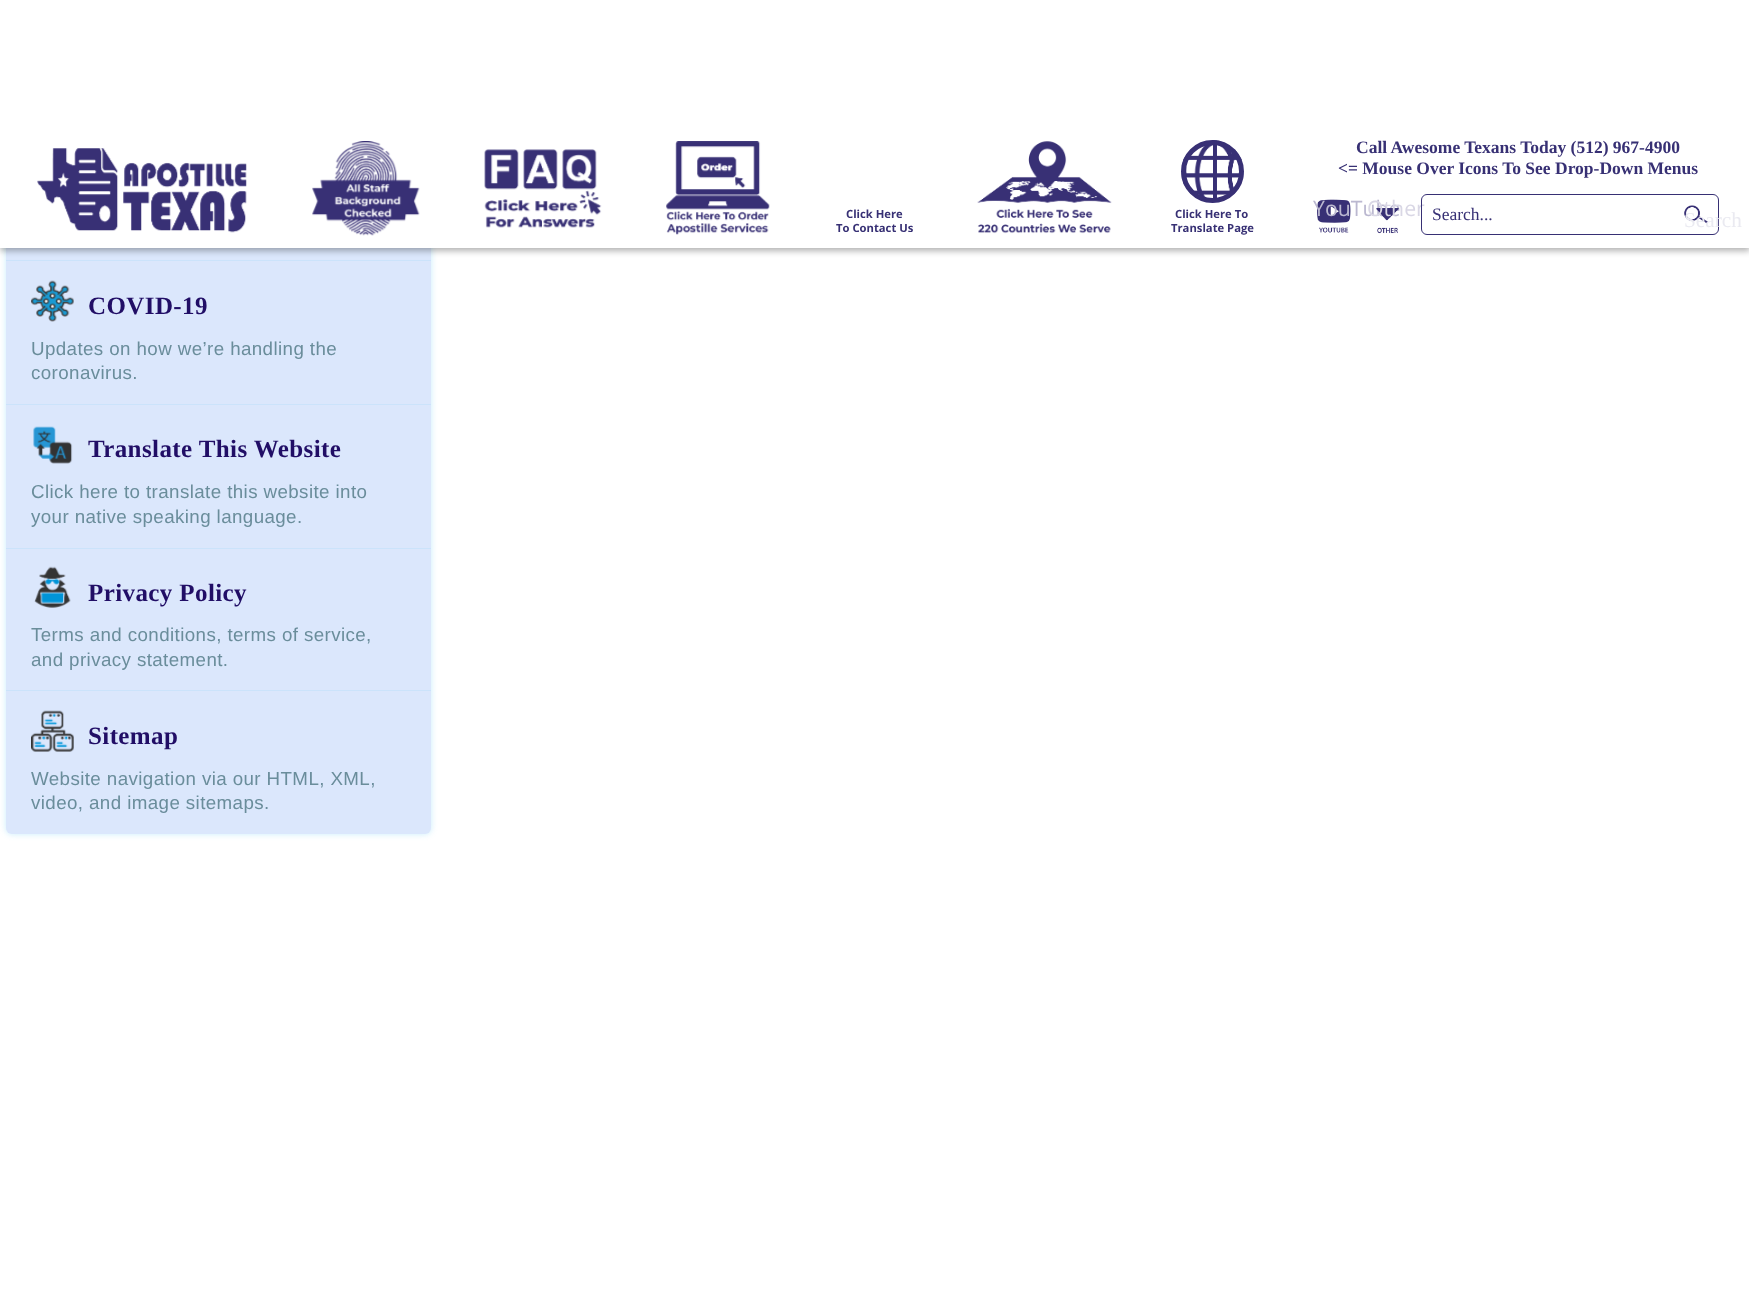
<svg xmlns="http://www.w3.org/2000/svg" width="1749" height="1299">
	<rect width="100%" height="100%" fill="#FFFFFF" />
	<rect x="6" y="-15" width="425" height="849" rx="6" fill="#3ABAF1" fill-opacity="0.28" filter="blur(3px)" />
	<rect x="6" y="-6" width="425" height="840" rx="6" fill="#DBE7FC" />
	<rect x="6" y="260" width="425" height="1" fill="#CBE3FB" />
	<rect x="0" y="4" width="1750" height="247" fill="#000000" fill-opacity="0.3" filter="blur(3px)" />
	<rect x="0" y="0" width="1749" height="248" fill="#FFFFFF" />
	<image x="37" y="148" width="210" height="85" href="assets/img1.png" />
	<image x="312" y="141" width="108" height="95" href="assets/img2.png" />
	<image x="484" y="149" width="118" height="79" href="assets/img3.png" />
	<image x="666" y="141" width="104" height="94" href="assets/img4.png" />
	<g font-family="Open Sans" font-size="11.25" font-weight="700" fill="#373074">
		<text x="846" y="218">Click Here</text>
		<text x="836" y="232">To Contact Us</text>
	</g>
	<image x="977" y="141" width="135" height="93" href="assets/img5.png" />
	<image x="1181" y="140" width="63" height="63" href="assets/img6.png" />
	<circle cx="1212.5" cy="171.5" r="29" fill="none" stroke="#383075" stroke-width="5" />
	<g font-family="Open Sans" font-size="11.25" font-weight="700" fill="#373074">
		<text x="1175" y="218">Click Here To</text>
		<text x="1171" y="232">Translate Page</text>
	</g>
	<g font-family="Liberation Serif" font-size="17.5" font-weight="700" fill="#373074">
		<text x="1356" y="153">Call Awesome Texans Today (512) 967-4900</text>
		<text x="1338" y="174">&lt;= Mouse Over Icons To See Drop-Down Menus</text>
	</g>
	<image x="1317" y="199" width="34" height="34" href="assets/img7.png" />
	<text x="1313" y="216" font-family="Open Sans" font-size="21.25" fill="#BBB8D0">YouTube</text>
	<image x="1376" y="208" width="23" height="26" href="assets/img8.png" />
	<text x="1367" y="216" font-family="Open Sans" font-size="21.25" fill="#D9D7E5">Other</text>
	<rect x="1421.5" y="194.5" width="297" height="40" rx="5.5" fill="none" stroke="#373074" />
	<text x="1432" y="220" font-family="Liberation Serif" font-size="17.5" fill="#373074">Search...</text>
	<image x="1684" y="205" width="24" height="19" href="assets/img9.png" />
	<text x="1684" y="227" font-family="Liberation Serif" font-size="21.25" fill="#EAEAF1">Search</text>
	<rect x="6" y="404" width="425" height="1" fill="#CBE3FB" />
	<image x="31" y="280" width="43" height="42" href="assets/img10.png" />
	<text x="88" y="314" font-family="Liberation Serif" font-size="25" font-weight="700" letter-spacing="0.4" fill="#210E66">COVID-19</text>
	<g font-family="Liberation Sans" font-size="18.75" letter-spacing="0.4" fill="#6A8D9B">
		<text x="31" y="355">Updates on how we’re handling the</text>
		<text x="31" y="379">coronavirus.</text>
	</g>
	<rect x="6" y="548" width="425" height="1" fill="#CBE3FB" />
	<image x="33" y="426" width="40" height="38" href="assets/img11.png" />
	<text x="88" y="457" font-family="Liberation Serif" font-size="25" font-weight="700" letter-spacing="0.4" fill="#210E66">Translate This Website</text>
	<g font-family="Liberation Sans" font-size="18.75" letter-spacing="0.4" fill="#6A8D9B">
		<text x="31" y="498">Click here to translate this website into</text>
		<text x="31" y="523">your native speaking language.</text>
	</g>
	<rect x="6" y="690" width="425" height="1" fill="#CBE3FB" />
	<image x="34" y="566" width="37" height="42" href="assets/img12.png" />
	<text x="88" y="601" font-family="Liberation Serif" font-size="25" font-weight="700" letter-spacing="0.4" fill="#210E66">Privacy Policy</text>
	<g font-family="Liberation Sans" font-size="18.75" letter-spacing="0.4" fill="#6A8D9B">
		<text x="31" y="641">Terms and conditions, terms of service,</text>
		<text x="31" y="666">and privacy statement.</text>
	</g>
	<image x="31" y="710" width="43" height="42" href="assets/img13.png" />
	<text x="88" y="744" font-family="Liberation Serif" font-size="25" font-weight="700" letter-spacing="0.4" fill="#210E66">Sitemap</text>
	<g font-family="Liberation Sans" font-size="18.75" letter-spacing="0.4" fill="#6A8D9B">
		<text x="31" y="785">Website navigation via our HTML, XML,</text>
		<text x="31" y="809">video, and image sitemaps.</text>
	</g>
</svg>
